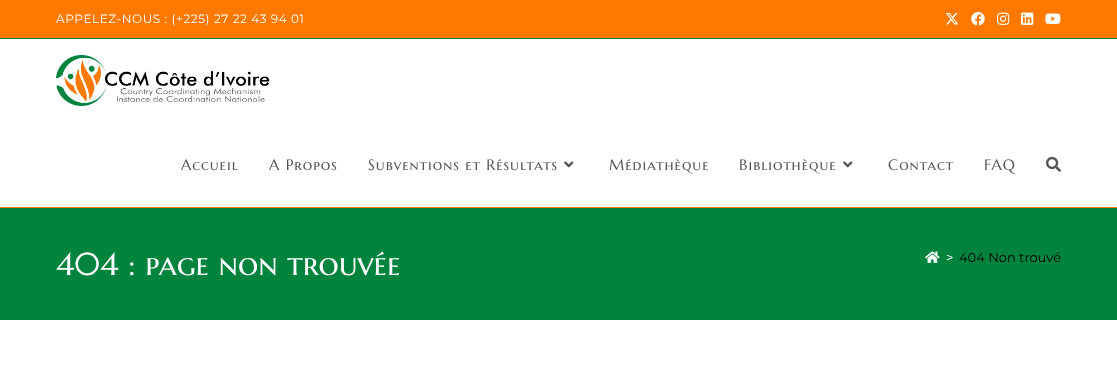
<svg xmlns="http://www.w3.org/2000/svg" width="1117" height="392">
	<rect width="100%" height="100%" fill="#FFFFFF" />
	<rect x="0" y="0" width="1117" height="38" fill="#FF7900" />
	<rect x="0" y="38" width="1117" height="1" fill="#00833D" />
	<text x="56" y="23" font-family="Montserrat" font-size="12" letter-spacing="0.6" fill="#FFFFFF">APPELEZ-NOUS : (+225) 27 22 43 94 01</text>
	<image x="945" y="13" width="14" height="12" href="assets/img1.png" />
	<image x="971" y="12" width="14" height="14" href="assets/img2.png" />
	<image x="997" y="12" width="13" height="13" href="assets/img3.png" />
	<image x="1021" y="12" width="13" height="13" href="assets/img4.png" />
	<image x="1045" y="13" width="16" height="11" href="assets/img5.png" />
	<rect x="0" y="207" width="1117" height="1" fill="#FF7900" />
	<image x="56" y="55" width="214" height="51" href="assets/img6.png" />
	<g font-family="Marcellus SC" font-size="15" letter-spacing="1" fill="#545454">
		<text x="181" y="170">Accueil</text>
		<text x="269" y="170">A Propos</text>
		<text x="368" y="170">Subventions et Résultats</text>
	</g>
	<image x="564" y="161" width="10" height="7" href="assets/img7.png" />
	<g font-family="Marcellus SC" font-size="15" letter-spacing="1" fill="#545454">
		<text x="609" y="170">Médiathèque</text>
		<text x="739" y="170">Bibliothèque</text>
	</g>
	<image x="843" y="161" width="10" height="7" href="assets/img7.png" />
	<g font-family="Marcellus SC" font-size="15" letter-spacing="1" fill="#545454">
		<text x="888" y="170">Contact</text>
		<text x="984" y="170">FAQ</text>
	</g>
	<image x="1046" y="156" width="15" height="16" href="assets/img8.png" />
	<rect x="0" y="208" width="1117" height="112" fill="#00833D" />
	<text x="56" y="275" font-family="Marcellus SC" font-size="32" fill="#FFFFFF">404 : page non trouvée</text>
	<image x="925" y="251" width="15" height="12" href="assets/img9.png" />
	<text x="946" y="262" font-family="Montserrat" font-size="13" fill="#FFFFFF">&gt;</text>
	<text x="959" y="262" font-family="Montserrat" font-size="13" fill="#000000">404 Non trouvé</text>
</svg>
